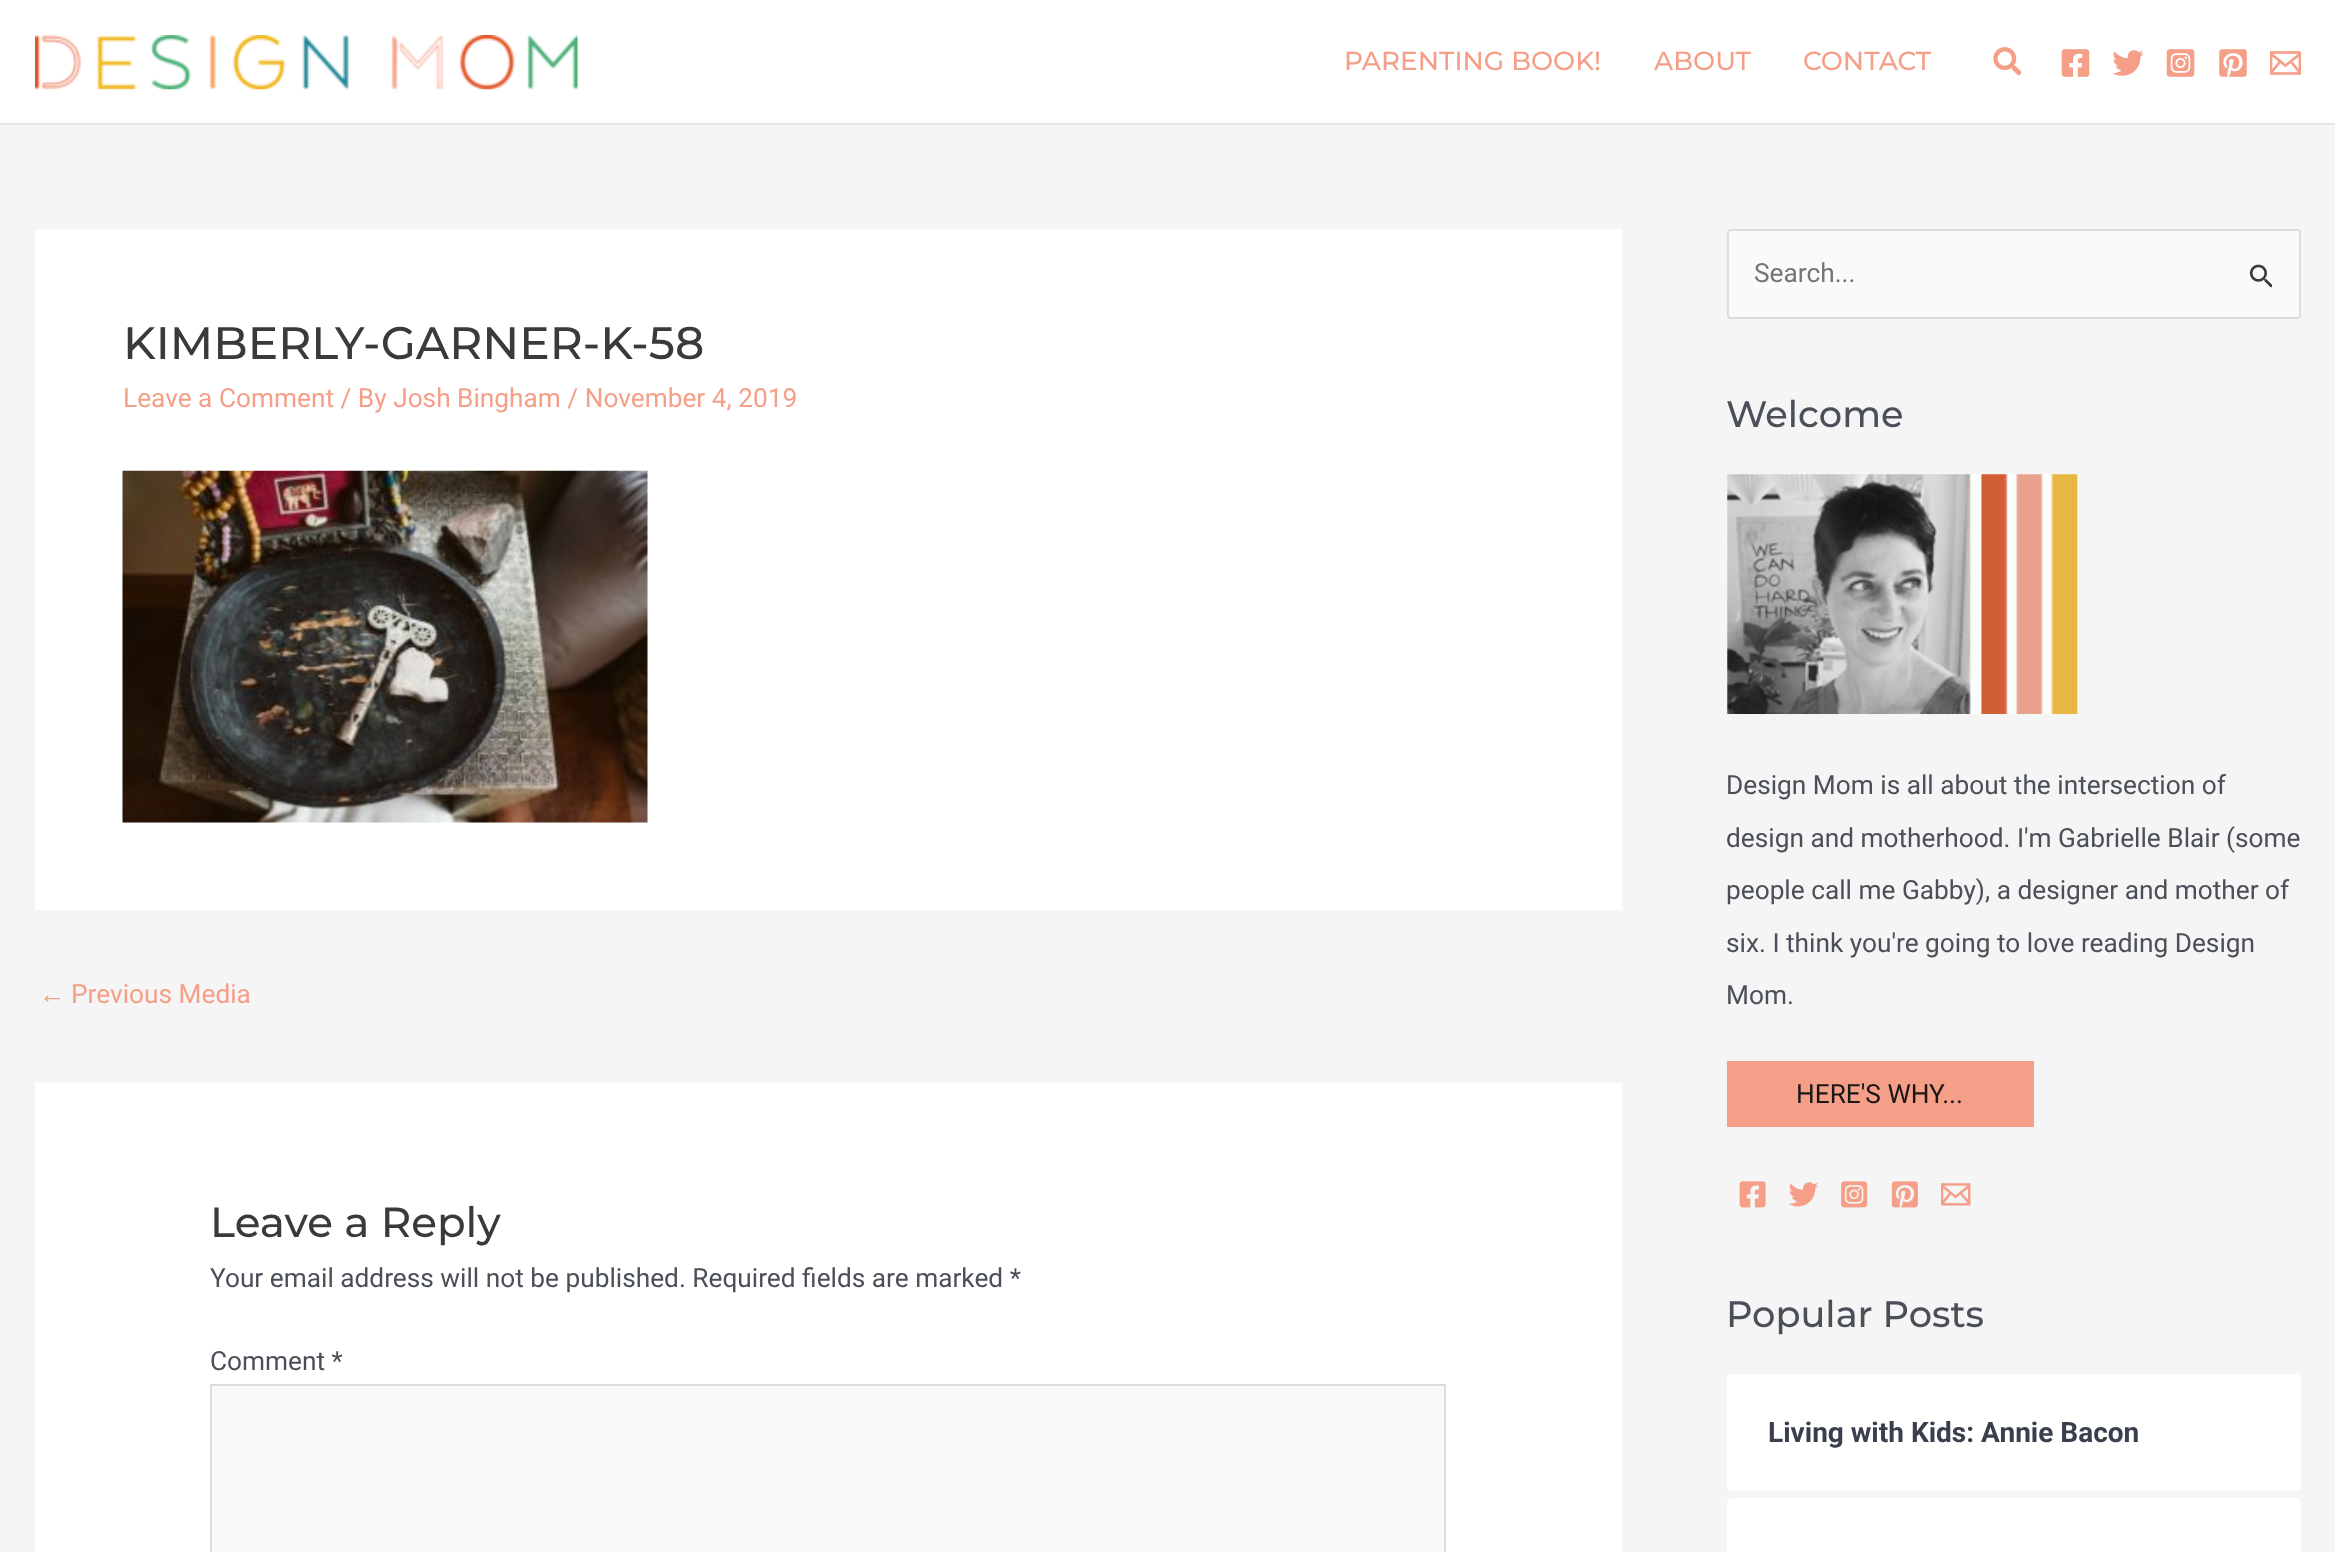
<svg xmlns="http://www.w3.org/2000/svg" width="2335" height="1552">
	<rect width="100%" height="100%" fill="#F5F5F5" />
	<rect x="0" y="0" width="2335" height="123" fill="#FFFFFF" />
	<rect x="0" y="123" width="2335" height="2" fill="#E5E5E5" />
	<image x="35" y="35" width="543" height="55" href="assets/img1.png" />
	<g font-family="Montserrat" font-size="26.25" font-weight="100" fill="#F59E88">
		<text x="1344" y="70">PARENTING BOOK!</text>
		<text x="1654" y="70">ABOUT</text>
		<text x="1803" y="70">CONTACT</text>
	</g>
	<image x="1993" y="47" width="28" height="29" href="assets/img2.png" />
	<image x="2061" y="49" width="29" height="28" href="assets/img3.png" />
	<image x="2112" y="50" width="32" height="26" href="assets/img4.png" />
	<image x="2166" y="49" width="29" height="28" href="assets/img5.png" />
	<image x="2219" y="49" width="28" height="28" href="assets/img6.png" />
	<image x="2270" y="51" width="31" height="24" href="assets/img7.png" />
	<rect x="35" y="229" width="1587" height="681" fill="#FFFFFF" />
	<text x="123" y="359" font-family="Montserrat" font-size="45.5" font-weight="100" fill="#3A3A3A">KIMBERLY-GARNER-K-58</text>
	<text x="123" y="407" font-family="Roboto" font-size="26.25" fill="#F59E88">Leave a Comment / By Josh Bingham / November 4, 2019</text>
	<image x="122" y="470" width="526" height="353" href="assets/img8.png" />
	<text x="39" y="1003" font-family="Liberation Sans" font-size="26.25" fill="#F59E88">←</text>
	<text x="71" y="1003" font-family="Roboto" font-size="26.25" fill="#F59E88">Previous Media</text>
	<rect x="35" y="1083" width="1587" height="469" fill="#FFFFFF" />
	<text x="210" y="1237" font-family="Montserrat" font-size="42" font-weight="100" fill="#3A3A3A">Leave a Reply</text>
	<g font-family="Roboto" font-size="26.25" fill="#4B4F58">
		<text x="210" y="1287">Your email address will not be published. Required fields are marked *</text>
		<text x="210" y="1370">Comment *</text>
	</g>
	<rect x="211" y="1385" width="1234" height="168" fill="#FAFAFA" stroke="#DDDDDD" stroke-width="2" />
	<rect x="1728" y="230" width="572" height="88" rx="3" fill="#FAFAFA" stroke="#DDDDDD" stroke-width="2" />
	<text x="1754" y="282" font-family="Roboto" font-size="26.25" fill="#757575">Search...</text>
	<image x="2249" y="264" width="23" height="24" href="assets/img9.png" />
	<text x="1726" y="427" font-family="Montserrat" font-size="36.75" font-weight="100" fill="#4B4F58">Welcome</text>
	<image x="1727" y="474" width="351" height="240" href="assets/img10.png" />
	<g font-family="Roboto" font-size="26.25" fill="#4B4F58">
		<text x="1726" y="794">Design Mom is all about the intersection of</text>
		<text x="1726" y="847">design and motherhood. I'm Gabrielle Blair (some</text>
		<text x="1726" y="899">people call me Gabby), a designer and mother of</text>
		<text x="1726" y="952">six. I think you're going to love reading Design</text>
		<text x="1726" y="1004">Mom.</text>
	</g>
	<rect x="1727" y="1061" width="307" height="66" fill="#F59E88" />
	<text x="1796" y="1103" font-family="Roboto" font-size="26.25" fill="#181818">HERE'S WHY...</text>
	<image x="1739" y="1181" width="27" height="27" href="assets/img11.png" />
	<image x="1789" y="1182" width="29" height="25" href="assets/img12.png" />
	<image x="1841" y="1181" width="27" height="27" href="assets/img13.png" />
	<image x="1891" y="1181" width="27" height="27" href="assets/img14.png" />
	<image x="1941" y="1183" width="30" height="23" href="assets/img15.png" />
	<text x="1726" y="1327" font-family="Montserrat" font-size="36.75" font-weight="100" fill="#4B4F58">Popular Posts</text>
	<rect x="1727" y="1374" width="574" height="117" rx="5" fill="#FFFFFF" />
	<text x="1768" y="1442" font-family="Roboto" font-size="28" font-weight="700" fill="#393F4C">Living with Kids: Annie Bacon</text>
	<rect x="1727" y="1498" width="574" height="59" rx="5" fill="#FFFFFF" />
</svg>
